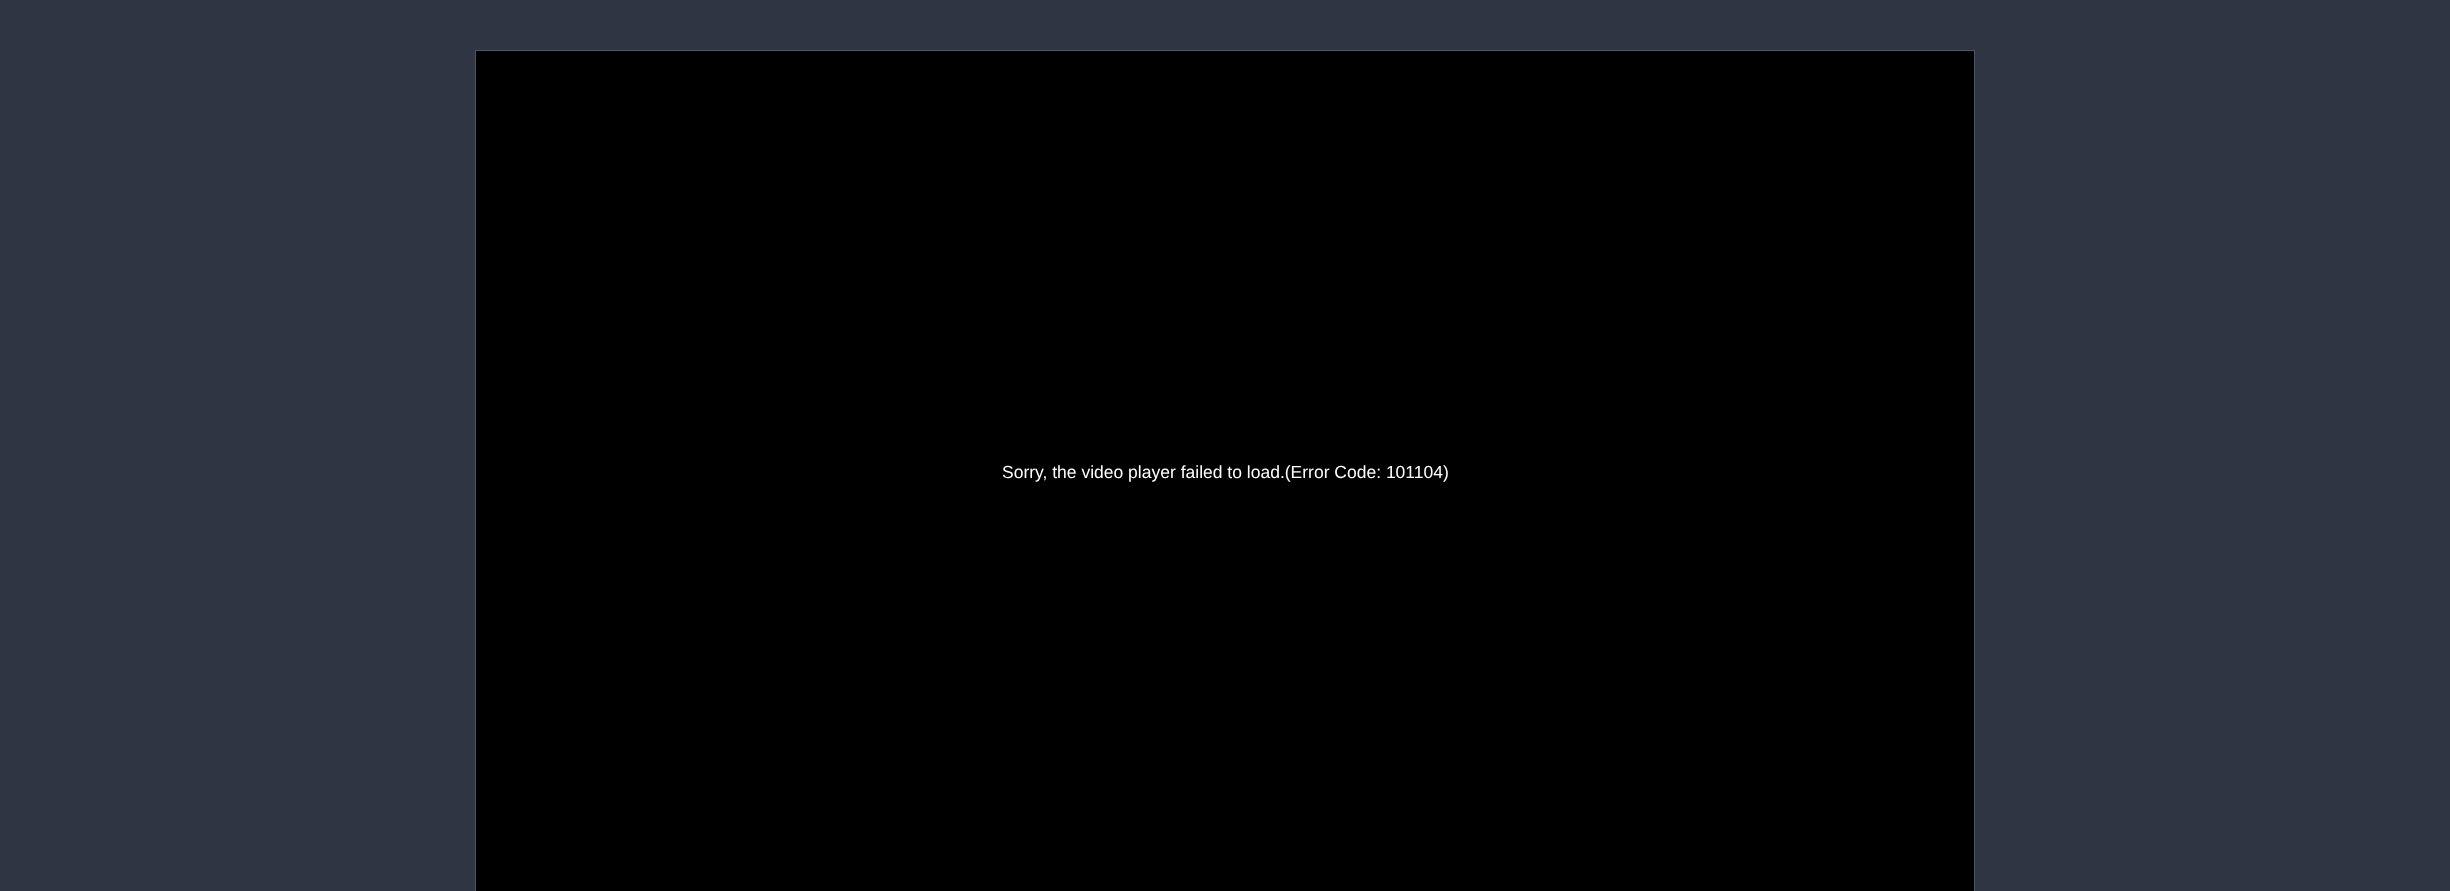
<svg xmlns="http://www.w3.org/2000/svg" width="2450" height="891">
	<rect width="100%" height="100%" fill="#2F3542" />
	<rect x="475.5" y="50.5" width="1499" height="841" fill="none" stroke="#4D5668" />
	<rect x="476" y="51" width="1498" height="840" fill="#000000" />
	<text x="1002" y="478" font-family="Liberation Sans" font-size="17.5" fill="#FFFFFF">Sorry, the video player failed to load.(Error Code: 101104)</text>
</svg>
